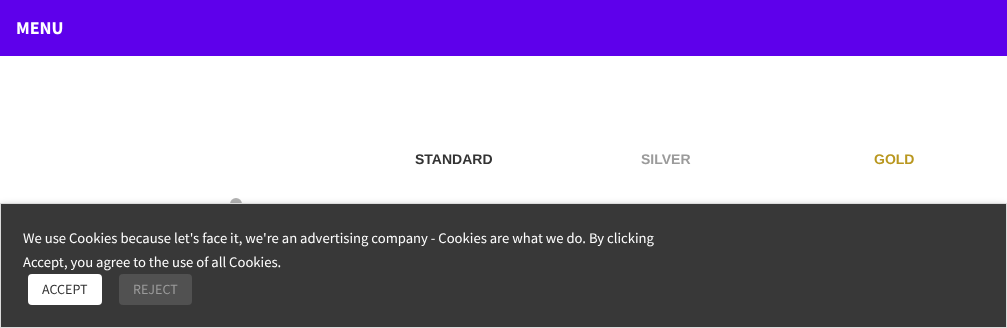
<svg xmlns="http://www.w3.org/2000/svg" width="1007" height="328">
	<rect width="100%" height="100%" fill="#FFFFFF" />
	<rect x="0" y="0" width="1007" height="56" fill="#5E00EB" />
	<text x="16" y="34" font-family="Source Sans Pro" font-size="18" font-weight="700" fill="#FFFFFF">MENU</text>
	<text x="415" y="164" font-family="Liberation Sans" font-size="14" font-weight="700" fill="#333333">STANDARD</text>
	<text x="641" y="164" font-family="Liberation Sans" font-size="14" font-weight="700" fill="#9B9B9B">SILVER</text>
	<text x="874" y="164" font-family="Liberation Sans" font-size="14" font-weight="700" fill="#B9971F">GOLD</text>
	<circle cx="236" cy="204" r="6" fill="#B2B2B2" />
	<rect x="0" y="208" width="1007" height="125" fill="#000000" fill-opacity="0.5" filter="blur(5px)" />
	<rect x="0.5" y="203.5" width="1006" height="124" fill="#383838" stroke="#DBDBDB" />
	<g font-family="Source Sans Pro" font-size="14.65" fill="#FFFFFF">
		<text x="23" y="243">We use Cookies because let's face it, we're an advertising company - Cookies are what we do. By clicking</text>
		<text x="23" y="267">Accept, you agree to the use of all Cookies.</text>
	</g>
	<rect x="28" y="274" width="74" height="31" rx="4" fill="#FFFFFF" />
	<text x="42" y="294" font-family="Source Sans Pro" font-size="14" fill="#333333">ACCEPT</text>
	<rect x="119" y="274" width="73" height="31" rx="4" fill="#515151" />
	<text x="133" y="294" font-family="Source Sans Pro" font-size="14" fill="#9B9B9B">REJECT</text>
</svg>
